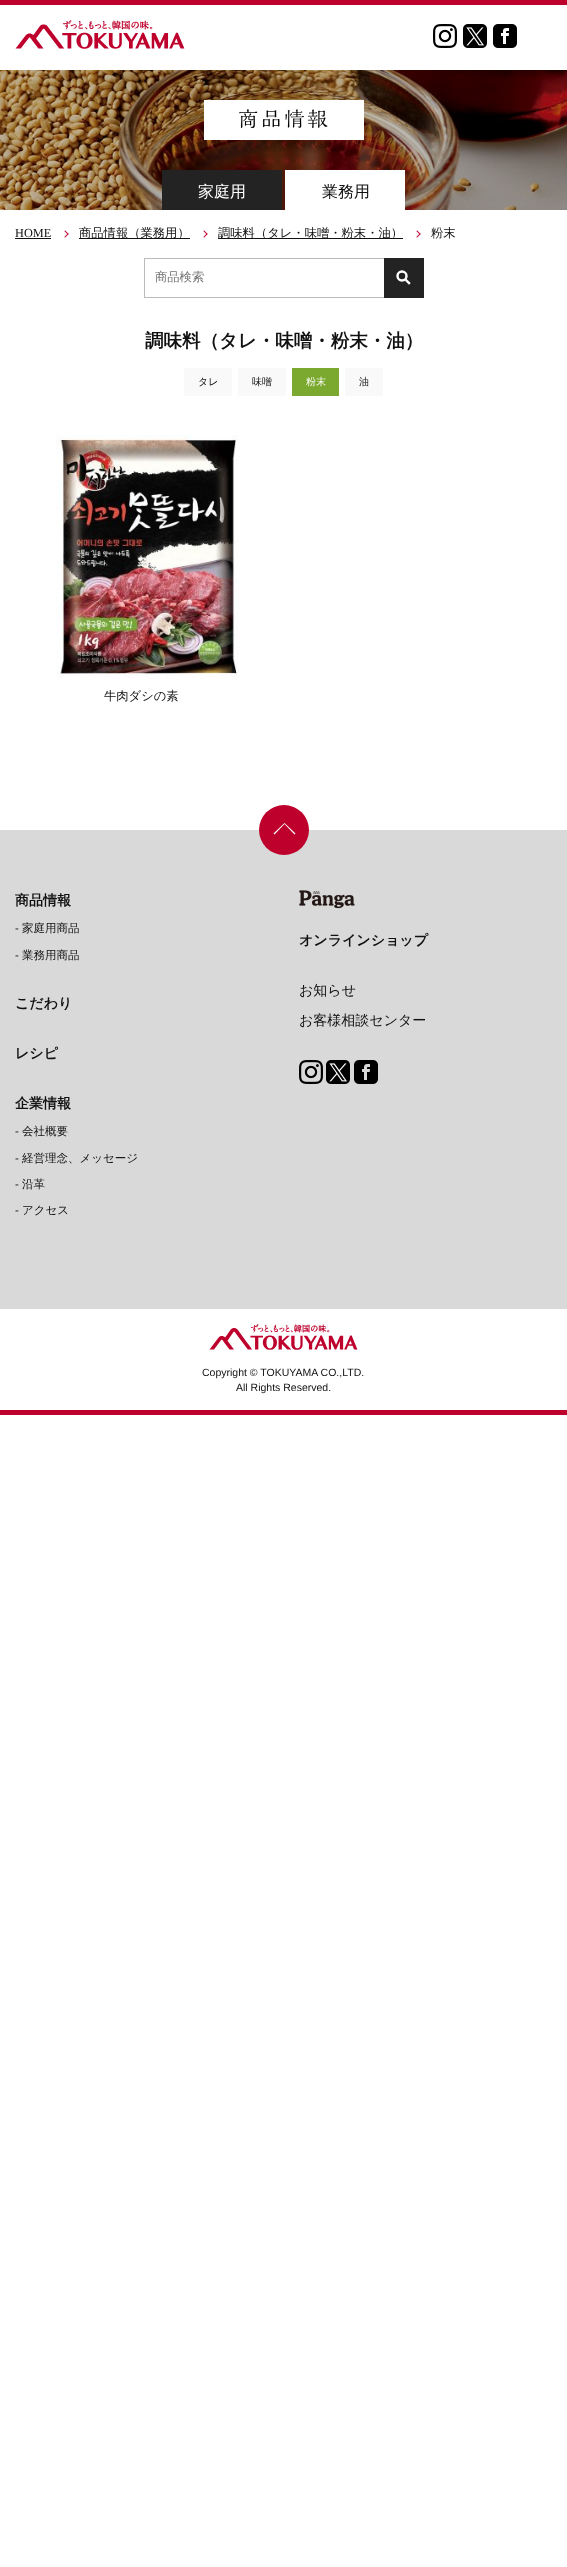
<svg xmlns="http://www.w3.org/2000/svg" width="567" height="2567">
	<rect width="100%" height="100%" fill="#FFFFFF" />
	<rect x="0" y="0" width="567" height="5" fill="#BE002D" />
	<image x="15" y="20" width="170" height="29" href="assets/img1.png" />
	<image x="433" y="24" width="24" height="24" href="assets/img2.png" />
	<image x="463" y="24" width="24" height="24" href="assets/img3.png" />
	<image x="493" y="24" width="24" height="24" href="assets/img4.png" />
	<image x="0" y="70" width="567" height="140" href="assets/img5.png" />
	<image x="204" y="100" width="160" height="40" href="assets/img6.png" />
	<rect x="162" y="170" width="120" height="40" fill="#232323" />
	<text x="198" y="197" font-family="WenQuanYi Zen Hei" font-size="16" font-weight="500" fill="#FFFFFF">家庭用</text>
	<rect x="285" y="170" width="120" height="40" fill="#FFFFFF" />
	<text x="322" y="197" font-family="WenQuanYi Zen Hei" font-size="16" font-weight="500" fill="#111111">業務用</text>
	<image x="64" y="230" width="5" height="8" href="assets/img7.png" />
	<text x="15" y="237" font-family="Liberation Serif" font-size="12.3" fill="#111111">HOME</text>
	<rect x="15" y="238" width="36" height="1" fill="#111111" />
	<image x="203" y="230" width="5" height="8" href="assets/img7.png" />
	<rect x="79" y="238" width="111" height="1" fill="#111111" />
	<text x="79" y="237" font-family="WenQuanYi Zen Hei" font-size="12.3" font-weight="500" fill="#111111">商品情報（業務用）</text>
	<image x="416" y="230" width="5" height="8" href="assets/img7.png" />
	<rect x="218" y="238" width="185" height="1" fill="#111111" />
	<g font-family="WenQuanYi Zen Hei" font-size="12.3" font-weight="500" fill="#111111">
		<text x="218" y="237">調味料（タレ・味噌・粉末・油）</text>
		<text x="431" y="237">粉末</text>
	</g>
	<rect x="144.5" y="258.5" width="279" height="39" fill="none" stroke="#BBBBBB" />
	<text x="155" y="281" font-family="WenQuanYi Zen Hei" font-size="12.3" font-weight="500" fill="#757575">商品検索</text>
	<rect x="384" y="258" width="40" height="40" fill="#232323" />
	<circle cx="402" cy="276" r="4.5" fill="none" stroke="#FFFFFF" stroke-width="2.4" />
	<path d="M406 280L409 283" fill="none" stroke="#FFFFFF" stroke-width="2.4" stroke-linecap="square" />
	<text x="145" y="347" font-family="WenQuanYi Zen Hei" font-size="18.5" font-weight="700" fill="#111111">調味料（タレ・味噌・粉末・油）</text>
	<rect x="184" y="368" width="48" height="28" fill="#F9F9F9" />
	<text x="198" y="385" font-family="WenQuanYi Zen Hei" font-size="10" font-weight="500" fill="#111111">タレ</text>
	<rect x="238" y="368" width="48" height="28" fill="#F9F9F9" />
	<text x="252" y="385" font-family="WenQuanYi Zen Hei" font-size="10" font-weight="500" fill="#111111">味噌</text>
	<rect x="292" y="368" width="47" height="28" fill="#7BA92F" />
	<text x="306" y="385" font-family="WenQuanYi Zen Hei" font-size="10" font-weight="500" fill="#FFFFFF">粉末</text>
	<rect x="345" y="368" width="38" height="28" fill="#F9F9F9" />
	<text x="359" y="385" font-family="WenQuanYi Zen Hei" font-size="10" font-weight="500" fill="#111111">油</text>
	<image x="56" y="435" width="183" height="244" href="assets/img8.png" />
	<text x="104" y="700" font-family="WenQuanYi Zen Hei" font-size="12.3" font-weight="500" fill="#111111">牛肉ダシの素</text>
	<rect x="0" y="1410" width="567" height="5" fill="#BE002D" />
	<rect x="0" y="830" width="567" height="479" fill="#D9D9D9" />
	<circle cx="284" cy="830" r="25" fill="#BE002D" />
	<path d="M285 823.5L284.5 823L273.5 833.5L274.5 834.5L284.5 824L294.5 834.5L295.5 833.5Z" fill="#FFFFFF" fill-rule="evenodd" />
	<text x="15" y="905" font-family="WenQuanYi Zen Hei" font-size="14" font-weight="700" fill="#111111">商品情報</text>
	<text x="15" y="932" font-family="Liberation Sans" font-size="11.5" fill="#111111">-</text>
	<text x="22" y="932" font-family="WenQuanYi Zen Hei" font-size="11.5" font-weight="500" fill="#111111">家庭用商品</text>
	<text x="15" y="959" font-family="Liberation Sans" font-size="11.5" fill="#111111">-</text>
	<text x="22" y="959" font-family="WenQuanYi Zen Hei" font-size="11.5" font-weight="500" fill="#111111">業務用商品</text>
	<g font-family="WenQuanYi Zen Hei" font-size="14" font-weight="700" fill="#111111">
		<text x="15" y="1008">こだわり</text>
		<text x="15" y="1058">レシピ</text>
		<text x="15" y="1108">企業情報</text>
	</g>
	<text x="15" y="1135" font-family="Liberation Sans" font-size="11.5" fill="#111111">-</text>
	<text x="22" y="1135" font-family="WenQuanYi Zen Hei" font-size="11.5" font-weight="500" fill="#111111">会社概要</text>
	<text x="15" y="1162" font-family="Liberation Sans" font-size="11.5" fill="#111111">-</text>
	<text x="22" y="1162" font-family="WenQuanYi Zen Hei" font-size="11.5" font-weight="500" fill="#111111">経営理念、メッセージ</text>
	<text x="15" y="1188" font-family="Liberation Sans" font-size="11.5" fill="#111111">-</text>
	<text x="22" y="1188" font-family="WenQuanYi Zen Hei" font-size="11.5" font-weight="500" fill="#111111">沿革</text>
	<text x="15" y="1214" font-family="Liberation Sans" font-size="11.5" fill="#111111">-</text>
	<text x="22" y="1214" font-family="WenQuanYi Zen Hei" font-size="11.5" font-weight="500" fill="#111111">アクセス</text>
	<image x="299" y="890" width="56" height="19" href="assets/img9.png" />
	<text x="299" y="945" font-family="WenQuanYi Zen Hei" font-size="14" font-weight="700" fill="#111111">オンラインショップ</text>
	<g font-family="WenQuanYi Zen Hei" font-size="14" font-weight="500" fill="#111111">
		<text x="299" y="995">お知らせ</text>
		<text x="299" y="1025">お客様相談センター</text>
	</g>
	<image x="299" y="1060" width="24" height="24" href="assets/img10.png" />
	<image x="326" y="1060" width="24" height="24" href="assets/img11.png" />
	<image x="354" y="1060" width="24" height="24" href="assets/img12.png" />
	<image x="209" y="1324" width="149" height="26" href="assets/img13.png" />
	<g font-family="Liberation Sans" font-size="10.5" fill="#111111">
		<text x="202" y="1376">Copyright © TOKUYAMA CO.,LTD.</text>
		<text x="236" y="1391">All Rights Reserved.</text>
	</g>
</svg>
